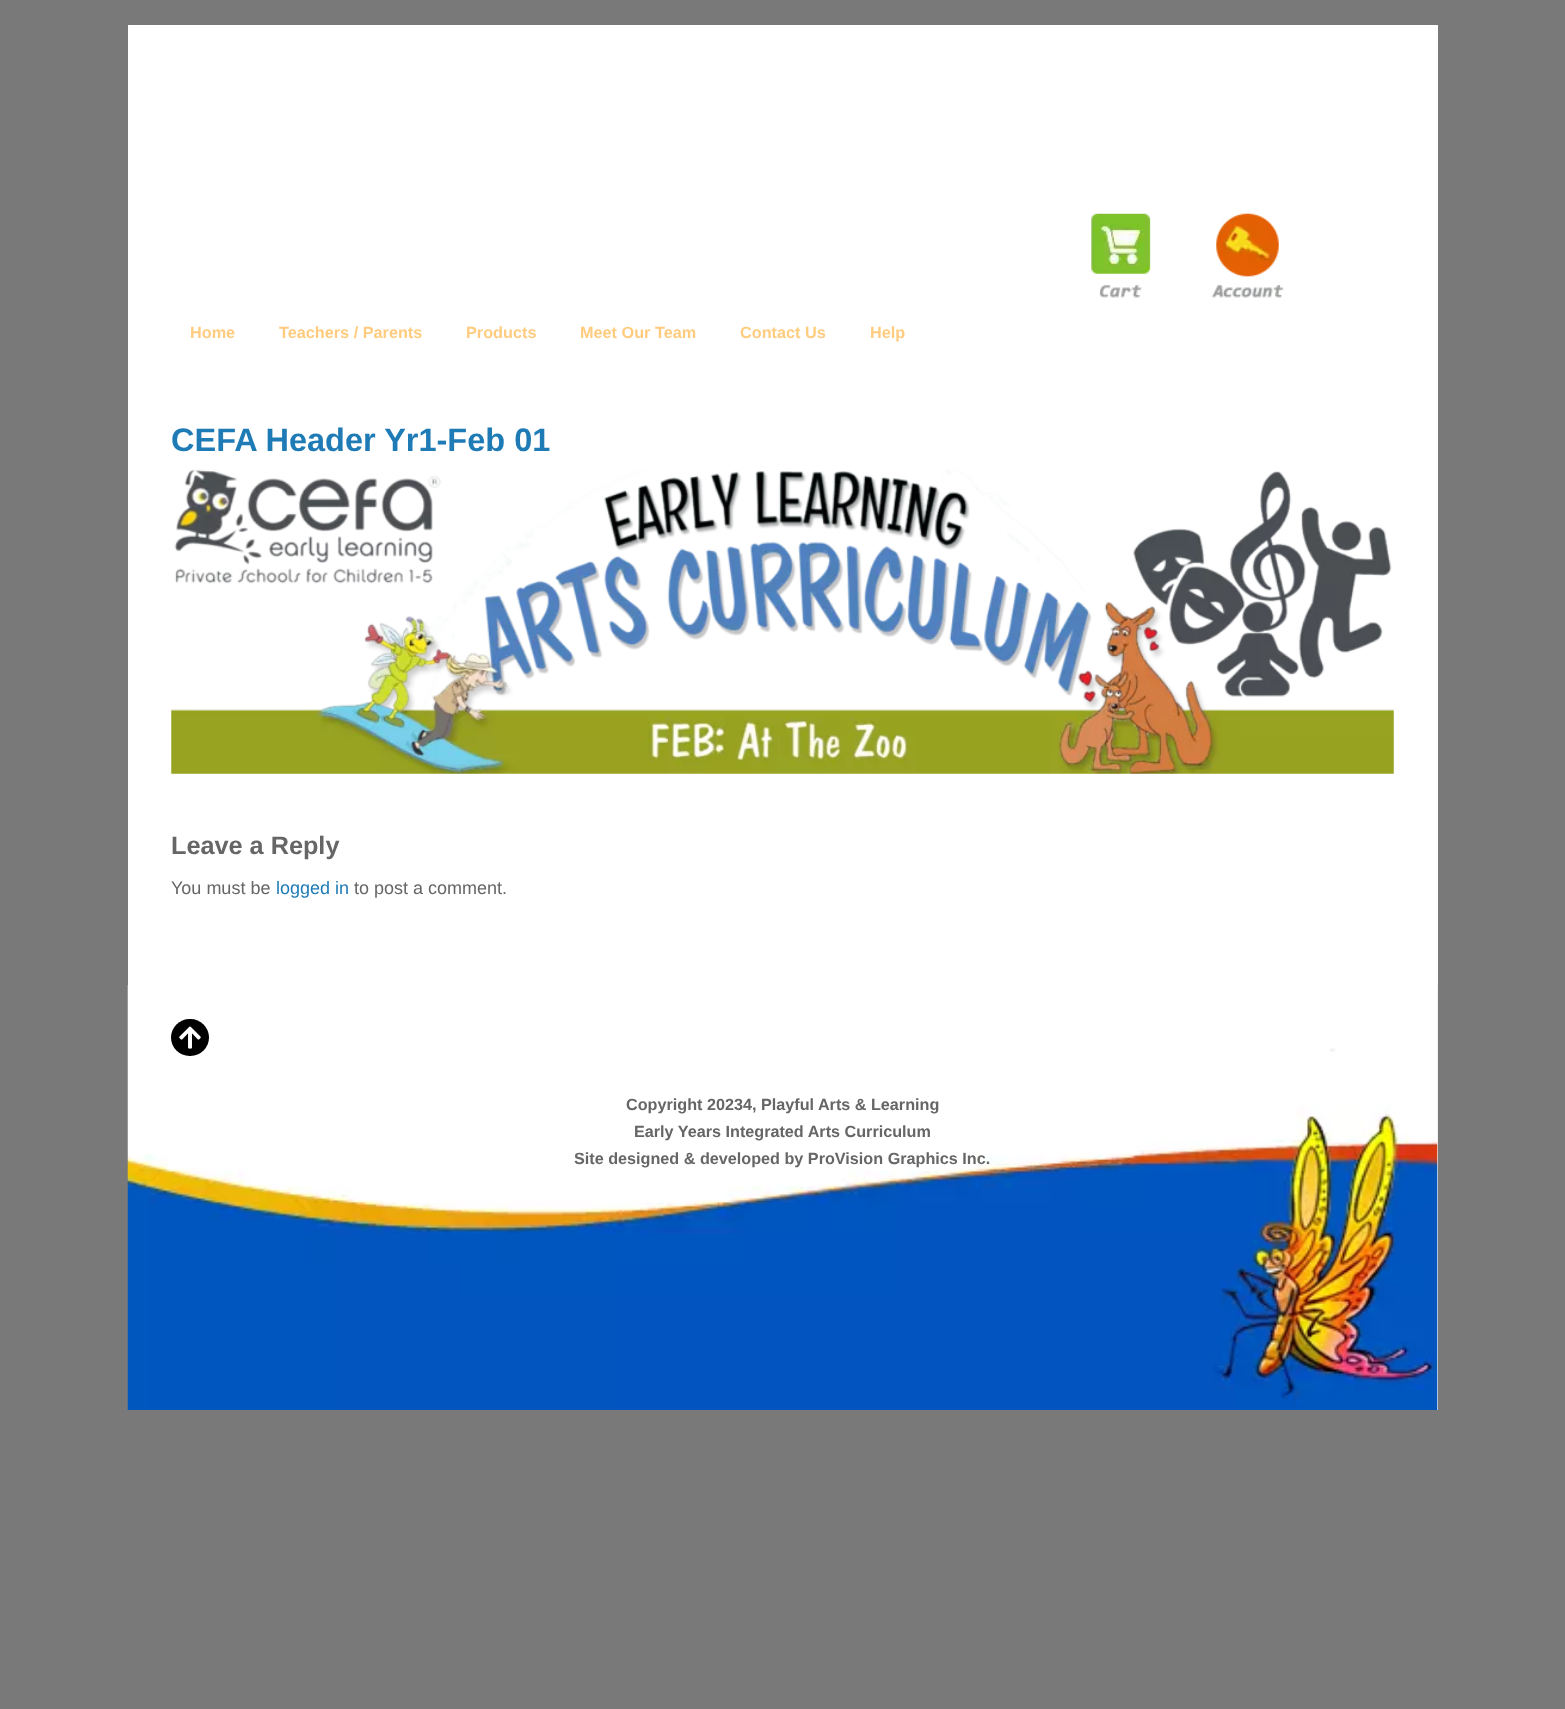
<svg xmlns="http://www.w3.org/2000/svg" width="1565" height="1709">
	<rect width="100%" height="100%" fill="#7A7979" />
	<rect x="128" y="25" width="1310" height="960" fill="#FFFFFF" />
	<image x="1091" y="213" width="60" height="85" href="assets/img1.png" />
	<image x="1211" y="213" width="73" height="85" href="assets/img2.png" />
	<g font-family="Liberation Sans" font-size="16.25" font-weight="700" fill="#FFCC7F">
		<text x="190" y="338">Home</text>
		<text x="279" y="338">Teachers / Parents</text>
		<text x="466" y="338">Products</text>
		<text x="580" y="338">Meet Our Team</text>
		<text x="740" y="338">Contact Us</text>
		<text x="870" y="338">Help</text>
	</g>
	<text x="171" y="451" font-family="Liberation Sans" font-size="32.5" font-weight="700" fill="#1F7BB6">CEFA Header Yr1-Feb 01</text>
	<image x="171" y="469" width="1223" height="305" href="assets/img3.png" />
	<text x="171" y="854" font-family="Liberation Sans" font-size="25.25" font-weight="700" fill="#666666">Leave a Reply</text>
	<text x="171" y="894" font-family="Liberation Sans" font-size="18" fill="#666666">You must be</text>
	<text x="276" y="894" font-family="Liberation Sans" font-size="18" fill="#1F7BB6">logged in</text>
	<text x="354" y="894" font-family="Liberation Sans" font-size="18" fill="#666666">to post a comment.</text>
	<rect x="1437" y="985" width="1" height="425" fill="#E8EEF0" />
	<image x="127" y="985" width="1311" height="425" href="assets/img4.png" />
	<rect x="171" y="1019" width="38" height="37" rx="18.5" fill="#000000" />
	<image x="179" y="1026" width="22" height="23" href="assets/img5.png" />
	<g font-family="Liberation Sans" font-size="16.2" font-weight="700" fill="#666666">
		<text x="626" y="1110">Copyright 20234, Playful Arts &amp; Learning</text>
		<text x="634" y="1137">Early Years Integrated Arts Curriculum</text>
		<text x="574" y="1164">Site designed &amp; developed by ProVision Graphics Inc.</text>
	</g>
</svg>
